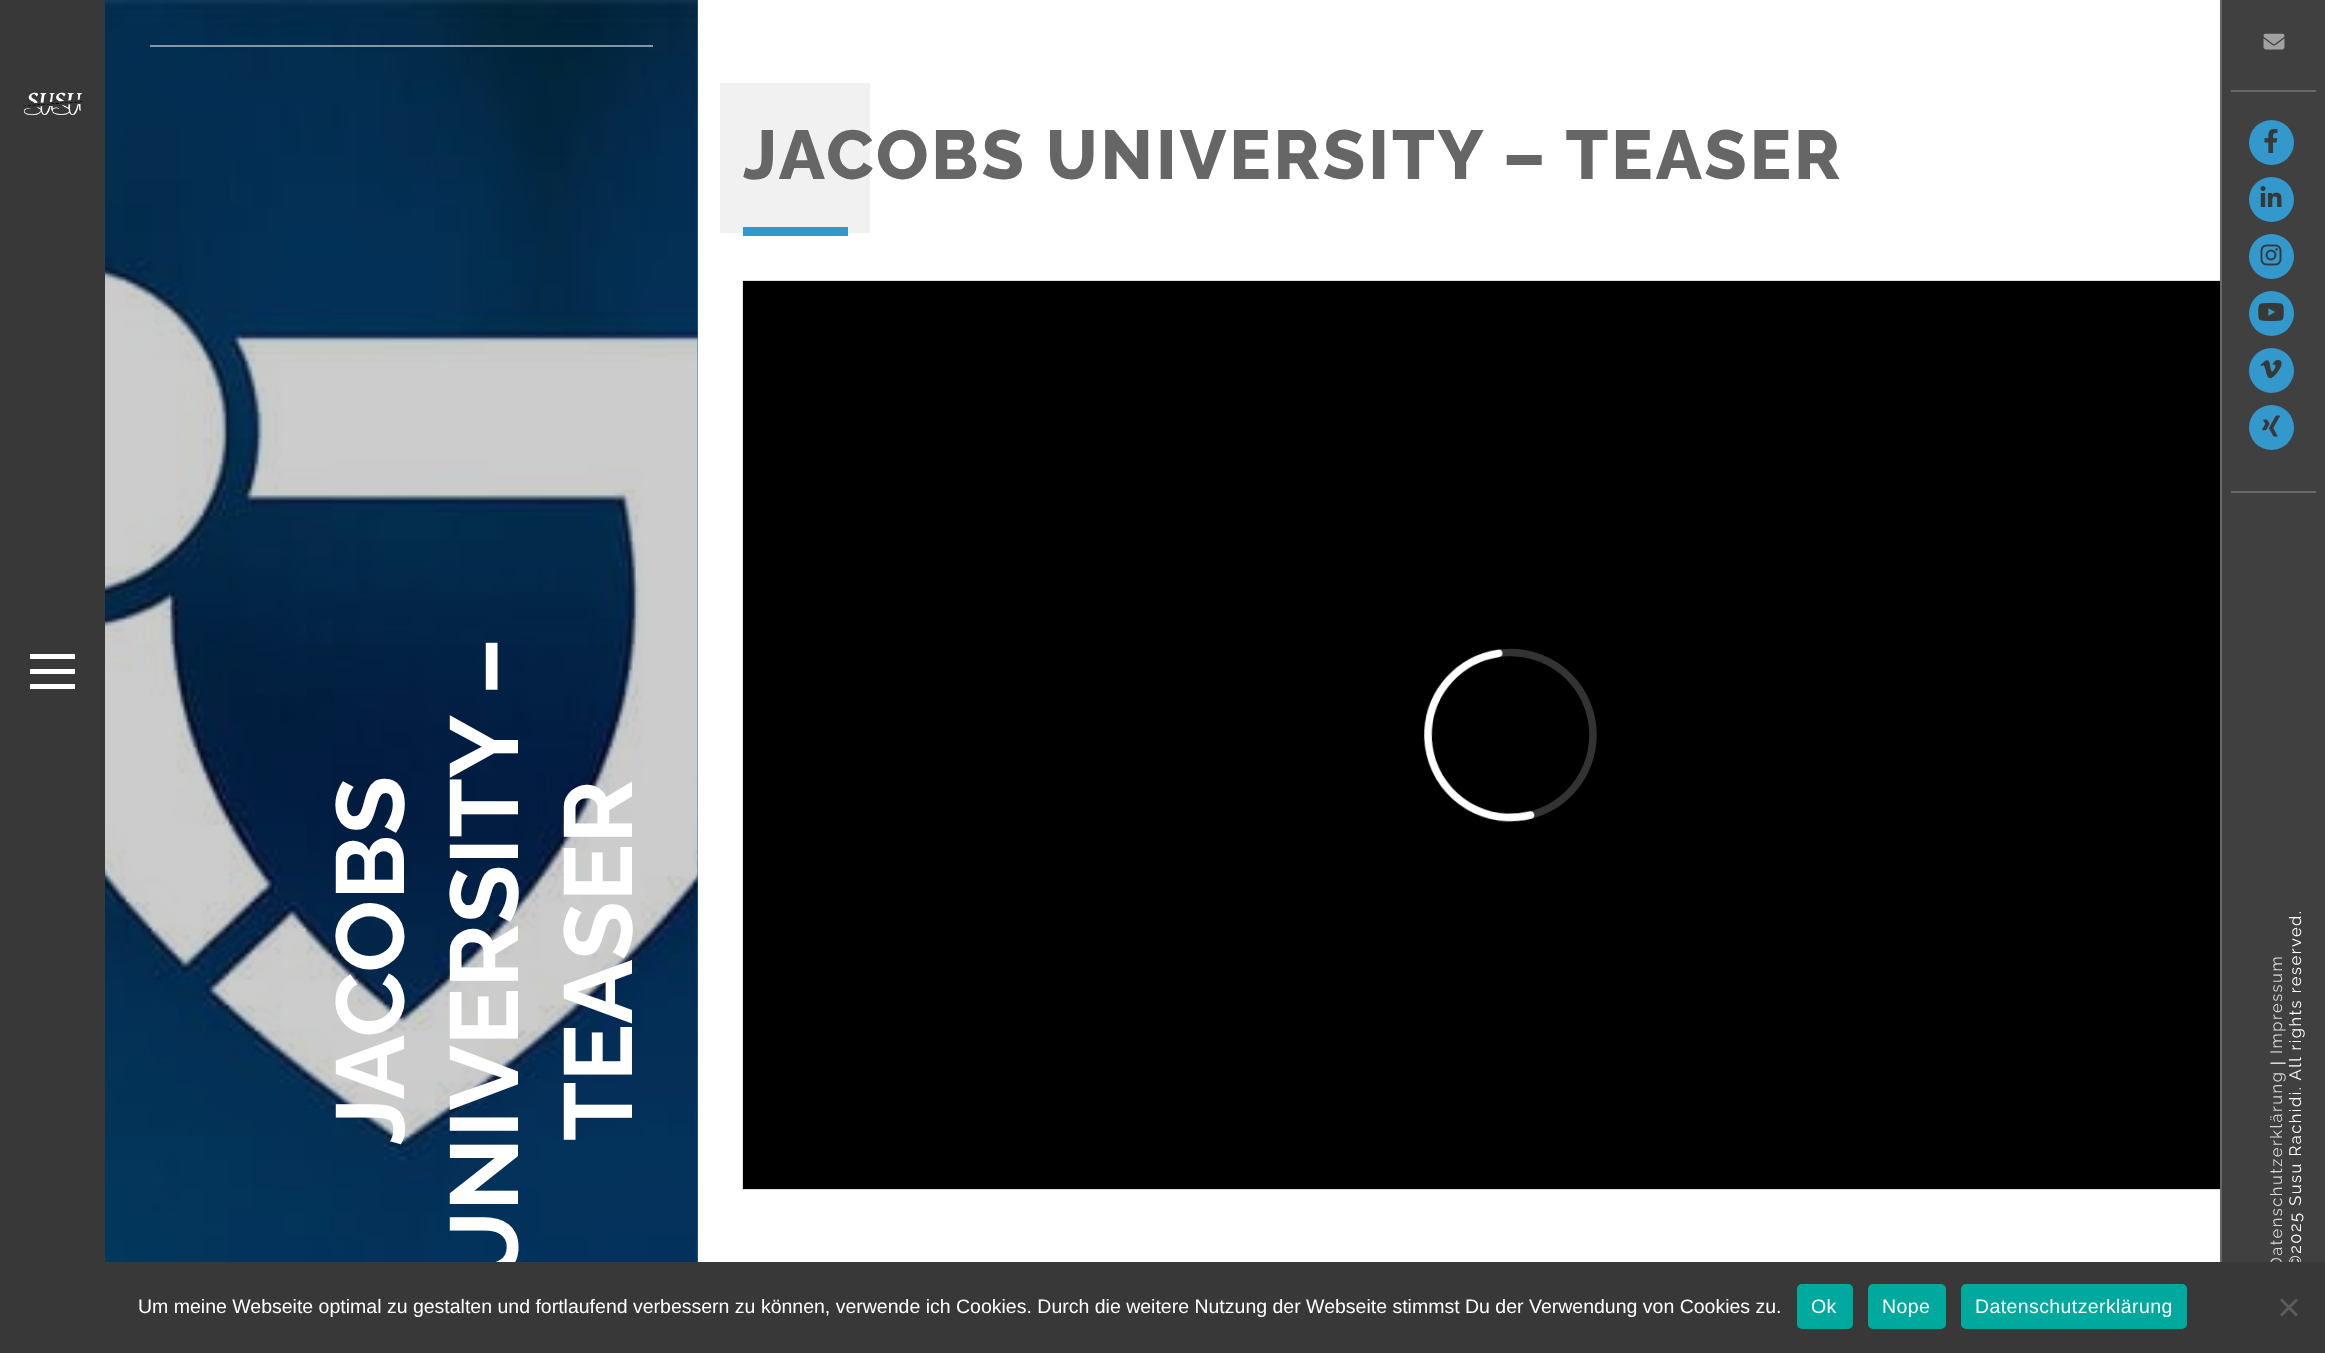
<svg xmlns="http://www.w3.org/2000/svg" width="2325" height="1353">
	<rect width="100%" height="100%" fill="#297AA3" />
	<rect x="0" y="0" width="105" height="1262" fill="#383838" />
	<image x="23" y="92" width="60" height="24" href="assets/img1.png" />
	<rect x="30" y="654" width="45" height="5" fill="#FFFFFF" />
	<rect x="30" y="669" width="45" height="5" fill="#FFFFFF" />
	<rect x="30" y="684" width="45" height="5" fill="#FFFFFF" />
	<rect x="698" y="0" width="1522" height="1262" fill="#FFFFFF" />
	<rect x="720" y="83" width="150" height="150" fill="#F1F1F1" />
	<text x="743" y="179" font-family="Raleway" font-size="69" font-weight="800" letter-spacing="3" fill="#666666">JACOBS UNIVERSITY – TEASER</text>
	<rect x="743" y="227" width="105" height="9" fill="#3398CC" />
	<image x="742" y="280" width="1478" height="910" href="assets/img2.png" />
	<image x="105" y="0" width="593" height="1262" href="assets/img3.png" />
	<rect x="150" y="45" width="503" height="2" fill="#FFFFFF" fill-opacity="0.51" />
	<g font-family="Raleway" font-size="96" font-weight="700" fill="#FFFFFF">
		<text x="404" y="1145" transform="rotate(-90 404 1145)">JACOBS</text>
		<text x="518" y="1283" transform="rotate(-90 518 1283)">UNIVERSITY –</text>
		<text x="632" y="1141" transform="rotate(-90 632 1141)">TEASER</text>
	</g>
	<rect x="2222" y="0" width="103" height="1262" fill="#404040" />
	<rect x="2220" y="0" width="2" height="1262" fill="#686868" />
	<image x="2263" y="33" width="22" height="17" href="assets/img4.png" />
	<rect x="2231" y="90" width="85" height="2" fill="#686868" />
	<circle cx="2271.5" cy="142.5" r="22.5" fill="#3398CC" />
	<image x="2264" y="129" width="14" height="24" href="assets/img5.png" />
	<circle cx="2271.5" cy="199.5" r="22.5" fill="#3398CC" />
	<image x="2260" y="186" width="22" height="21" href="assets/img6.png" />
	<circle cx="2271.5" cy="256.5" r="22.5" fill="#3398CC" />
	<image x="2260" y="244" width="22" height="22" href="assets/img7.png" />
	<circle cx="2271.5" cy="313.5" r="22.5" fill="#3398CC" />
	<image x="2258" y="303" width="26" height="18" href="assets/img8.png" />
	<circle cx="2271.5" cy="370.5" r="22.5" fill="#3398CC" />
	<image x="2260" y="360" width="22" height="19" href="assets/img9.png" />
	<circle cx="2271.5" cy="427.5" r="22.5" fill="#3398CC" />
	<image x="2262" y="415" width="18" height="22" href="assets/img10.png" />
	<rect x="2231" y="491" width="85" height="2" fill="#686868" />
	<text x="2282" y="1054" transform="rotate(-90 2282 1054)" font-family="Raleway" font-size="16.5" letter-spacing="1.5" fill="#D5D8DC">Impressum</text>
	<text x="2301" y="1269" transform="rotate(-90 2301 1269)" font-family="Raleway" font-size="16.5" letter-spacing="1.5" fill="#FFFFFF">©2025 Susu Rachidi. All rights reserved.</text>
	<text x="2282" y="1065" transform="rotate(-90 2282 1065)" font-family="Liberation Serif" font-size="16.5" font-weight="700" letter-spacing="1.5" fill="#FFFFFF">|</text>
	<text x="2282" y="1269" transform="rotate(-90 2282 1269)" font-family="Raleway" font-size="16.5" letter-spacing="1.5" fill="#D5D8DC">Datenschutzerklärung</text>
	<rect x="0" y="1262" width="2325" height="91" fill="#383838" />
	<text x="138" y="1313" font-family="Liberation Sans" font-size="19.5" fill="#FFFFFF">Um meine Webseite optimal zu gestalten und fortlaufend verbessern zu können, verwende ich Cookies. Durch die weitere Nutzung der Webseite stimmst Du der Verwendung von Cookies zu.</text>
	<rect x="1797" y="1284" width="56" height="45" rx="5" fill="#00A99D" />
	<text x="1811" y="1313" font-family="Liberation Sans" font-size="19.5" letter-spacing="0.4" fill="#FFFFFF">Ok</text>
	<rect x="1868" y="1284" width="78" height="45" rx="5" fill="#00A99D" />
	<text x="1882" y="1313" font-family="Liberation Sans" font-size="19.5" letter-spacing="0.4" fill="#FFFFFF">Nope</text>
	<rect x="1961" y="1284" width="226" height="45" rx="5" fill="#00A99D" />
	<text x="1975" y="1313" font-family="Liberation Sans" font-size="19.5" letter-spacing="0.4" fill="#FFFFFF">Datenschutzerklärung</text>
	<path d="M2296 1298.5L2298 1300.5L2282 1316.5L2280 1314.5Z" fill="#5C5C5C" />
	<path d="M2280 1300.5L2282 1298.5L2298 1314.5L2296 1316.5Z" fill="#5C5C5C" />
</svg>
